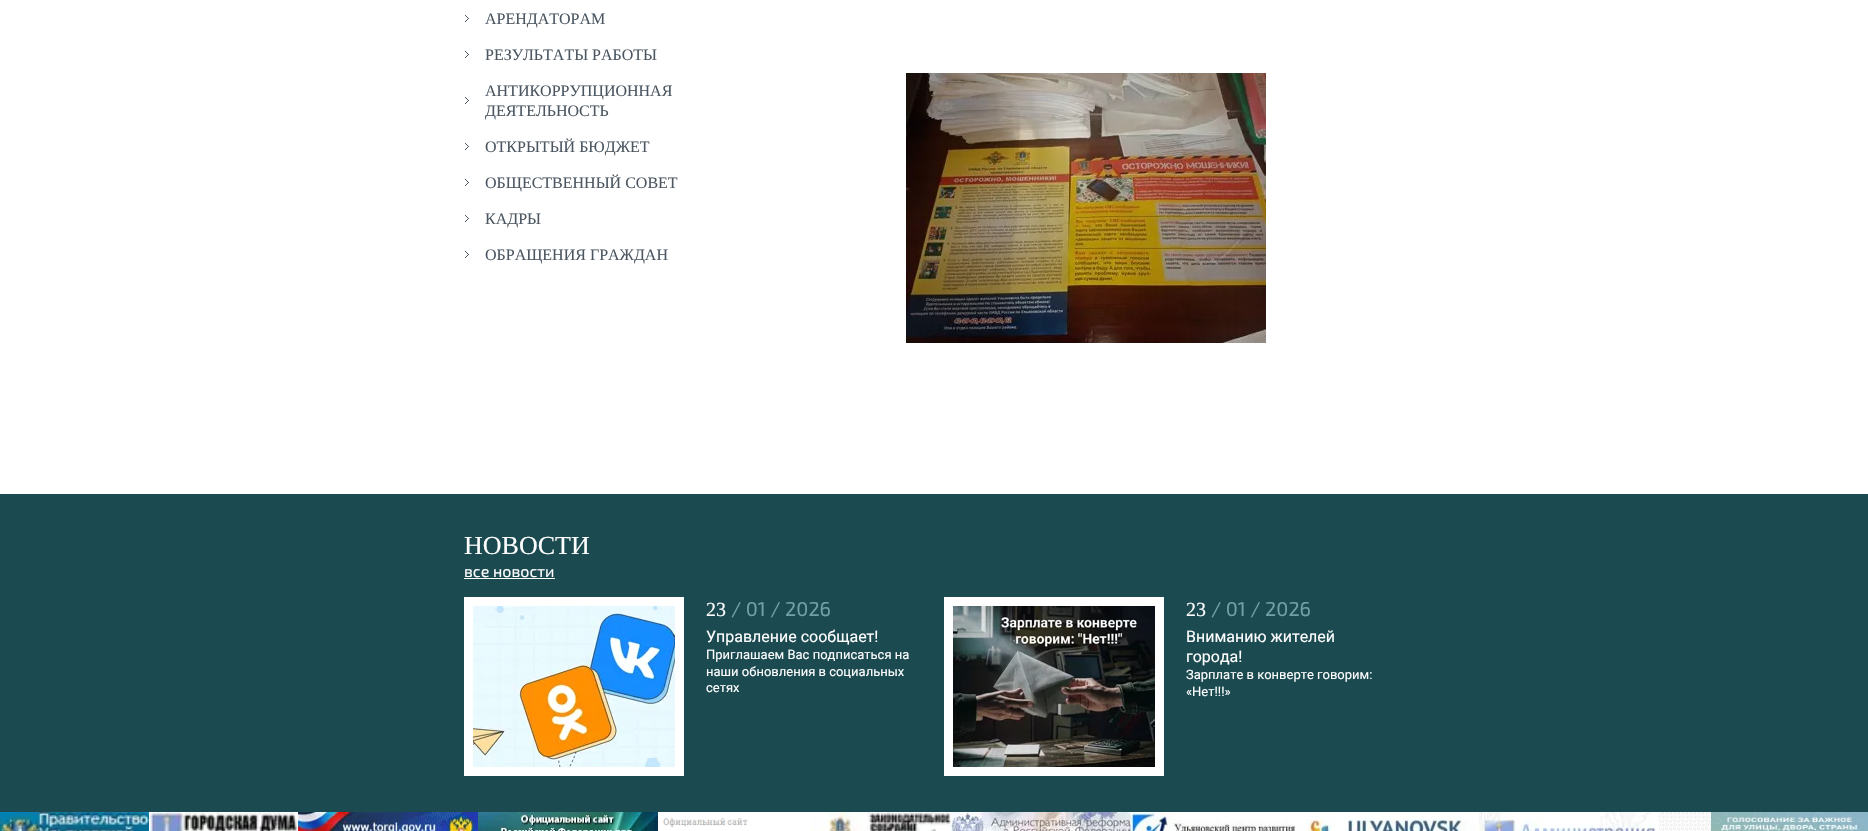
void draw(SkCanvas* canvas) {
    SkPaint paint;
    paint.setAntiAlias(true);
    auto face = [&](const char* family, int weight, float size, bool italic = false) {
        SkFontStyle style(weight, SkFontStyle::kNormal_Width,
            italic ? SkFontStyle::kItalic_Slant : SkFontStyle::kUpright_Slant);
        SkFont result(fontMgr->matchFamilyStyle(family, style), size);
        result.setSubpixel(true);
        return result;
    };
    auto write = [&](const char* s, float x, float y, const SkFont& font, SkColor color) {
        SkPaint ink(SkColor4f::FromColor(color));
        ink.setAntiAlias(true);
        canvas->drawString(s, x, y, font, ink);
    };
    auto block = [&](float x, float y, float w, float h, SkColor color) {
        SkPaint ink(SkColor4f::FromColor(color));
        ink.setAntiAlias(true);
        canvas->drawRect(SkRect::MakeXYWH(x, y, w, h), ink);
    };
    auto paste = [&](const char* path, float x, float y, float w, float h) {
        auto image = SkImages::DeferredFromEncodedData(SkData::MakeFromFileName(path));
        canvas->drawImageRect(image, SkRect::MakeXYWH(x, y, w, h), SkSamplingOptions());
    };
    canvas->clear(SK_ColorWHITE);
    paste("pic1.png", 1659, 812, 52, 19);
    paste("pic2.png", 465, 15, 4, 7);
    auto kFont1 = face("Liberation Serif", 400, 16);
    write("АРЕНДАТОРАМ", 485, 24, kFont1, SkColorSetRGB(75, 86, 97));
    paste("pic2.png", 465, 51, 4, 7);
    write("РЕЗУЛЬТАТЫ РАБОТЫ", 485, 60, kFont1, SkColorSetRGB(75, 86, 97));
    paste("pic2.png", 465, 97, 4, 7);
    write("АНТИКОРРУПЦИОННАЯ", 485, 96, kFont1, SkColorSetRGB(75, 86, 97));
    write("ДЕЯТЕЛЬНОСТЬ", 485, 116, kFont1, SkColorSetRGB(75, 86, 97));
    paste("pic2.png", 465, 143, 4, 7);
    write("ОТКРЫТЫЙ БЮДЖЕТ", 485, 152, kFont1, SkColorSetRGB(75, 86, 97));
    paste("pic2.png", 465, 179, 4, 7);
    write("ОБЩЕСТВЕННЫЙ СОВЕТ", 485, 188, kFont1, SkColorSetRGB(75, 86, 97));
    paste("pic2.png", 465, 215, 4, 7);
    write("КАДРЫ", 485, 224, kFont1, SkColorSetRGB(75, 86, 97));
    paste("pic2.png", 465, 251, 4, 7);
    write("ОБРАЩЕНИЯ ГРАЖДАН", 485, 260, kFont1, SkColorSetRGB(75, 86, 97));
    paste("pic3.png", 906, 73, 360, 270);
    block(0, 494, 1868, 318, SkColorSetRGB(28, 74, 81));
    auto kFont2 = face("Liberation Serif", 400, 26);
    write("НОВОСТИ", 464, 554, kFont2, SK_ColorWHITE);
    auto kFont3 = face("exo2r", 400, 16);
    write("все новости", 464, 577, kFont3, SK_ColorWHITE);
    block(464, 578, 91, 1, SK_ColorWHITE);
    block(464, 597, 220, 179, SK_ColorWHITE);
    paste("pic4.png", 473, 606, 202, 161);
    auto kFont4 = face("Liberation Serif", 400, 20);
    write("23", 706, 616, kFont4, SK_ColorWHITE);
    auto kFont5 = face("exo2r", 400, 20);
    write("/ 01 / 2026", 731, 616, kFont5, SkColorSetRGB(115, 160, 167));
    auto kFont6 = face("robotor", 400, 16);
    write("Управление сообщает!", 706, 642, kFont6, SK_ColorWHITE);
    auto kFont7 = face("robotor", 400, 13);
    write("Приглашаем Вас подписаться на", 706, 659, kFont7, SK_ColorWHITE);
    write("наши обновления в социальных", 706, 676, kFont7, SK_ColorWHITE);
    write("сетях", 706, 692, kFont7, SK_ColorWHITE);
    block(944, 597, 220, 179, SK_ColorWHITE);
    paste("pic5.png", 953, 606, 202, 161);
    write("23", 1186, 616, kFont4, SK_ColorWHITE);
    write("/ 01 / 2026", 1211, 616, kFont5, SkColorSetRGB(115, 160, 167));
    write("Вниманию жителей", 1186, 642, kFont6, SK_ColorWHITE);
    write("города!", 1186, 662, kFont6, SK_ColorWHITE);
    write("Зарплате в конверте говорим:", 1186, 679, kFont7, SK_ColorWHITE);
    write("«Нет!!!»", 1186, 696, kFont7, SK_ColorWHITE);
    paste("pic6.png", 0, 812, 149, 19);
    paste("pic7.png", 149, 812, 149, 19);
    paste("pic8.png", 298, 812, 180, 19);
    paste("pic9.png", 478, 812, 180, 19);
    paste("pic10.png", 658, 812, 153, 19);
    paste("pic11.png", 811, 812, 140, 19);
    paste("pic12.png", 951, 812, 180, 19);
    paste("pic13.png", 1131, 812, 168, 19);
    paste("pic14.png", 1299, 812, 180, 19);
    paste("pic15.png", 1479, 812, 180, 19);
    paste("pic16.png", 1711, 812, 157, 19);
}
